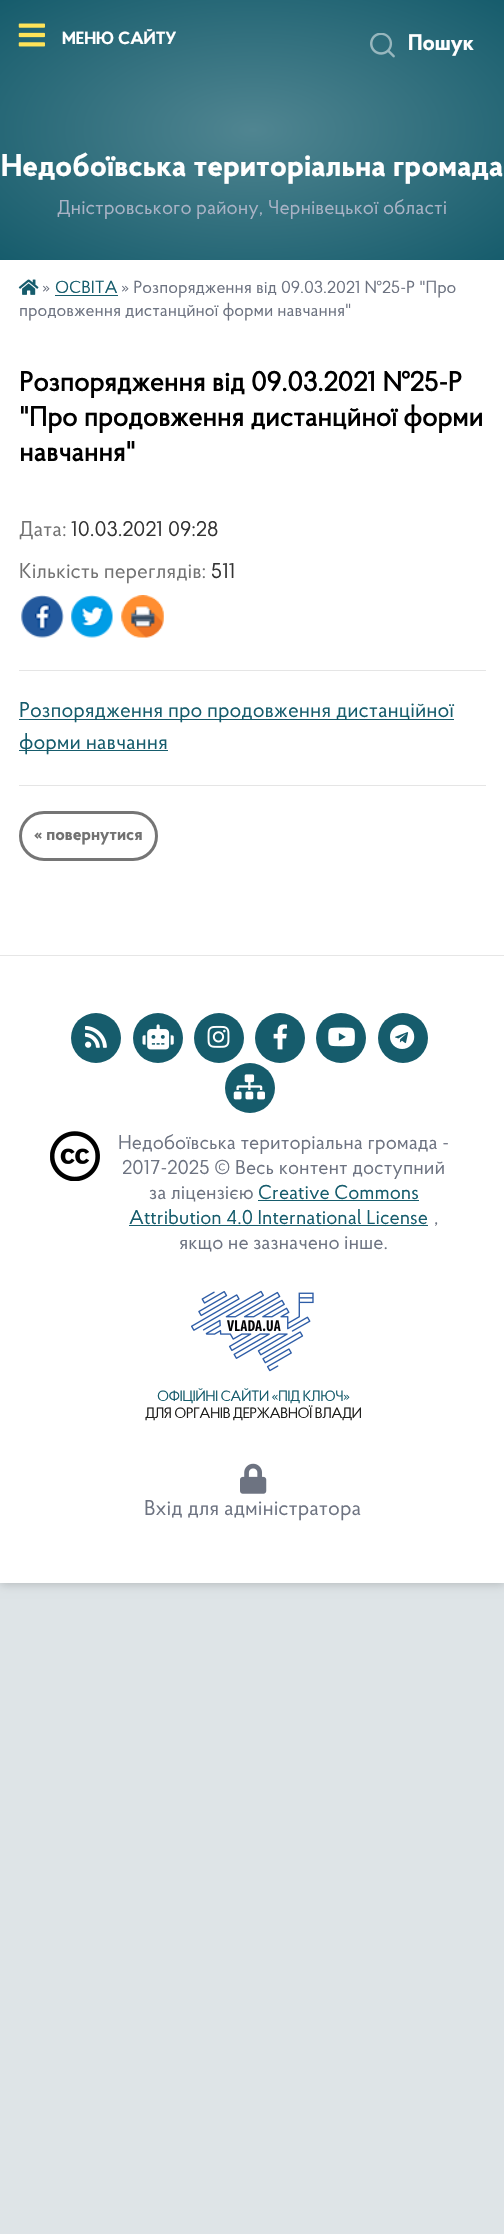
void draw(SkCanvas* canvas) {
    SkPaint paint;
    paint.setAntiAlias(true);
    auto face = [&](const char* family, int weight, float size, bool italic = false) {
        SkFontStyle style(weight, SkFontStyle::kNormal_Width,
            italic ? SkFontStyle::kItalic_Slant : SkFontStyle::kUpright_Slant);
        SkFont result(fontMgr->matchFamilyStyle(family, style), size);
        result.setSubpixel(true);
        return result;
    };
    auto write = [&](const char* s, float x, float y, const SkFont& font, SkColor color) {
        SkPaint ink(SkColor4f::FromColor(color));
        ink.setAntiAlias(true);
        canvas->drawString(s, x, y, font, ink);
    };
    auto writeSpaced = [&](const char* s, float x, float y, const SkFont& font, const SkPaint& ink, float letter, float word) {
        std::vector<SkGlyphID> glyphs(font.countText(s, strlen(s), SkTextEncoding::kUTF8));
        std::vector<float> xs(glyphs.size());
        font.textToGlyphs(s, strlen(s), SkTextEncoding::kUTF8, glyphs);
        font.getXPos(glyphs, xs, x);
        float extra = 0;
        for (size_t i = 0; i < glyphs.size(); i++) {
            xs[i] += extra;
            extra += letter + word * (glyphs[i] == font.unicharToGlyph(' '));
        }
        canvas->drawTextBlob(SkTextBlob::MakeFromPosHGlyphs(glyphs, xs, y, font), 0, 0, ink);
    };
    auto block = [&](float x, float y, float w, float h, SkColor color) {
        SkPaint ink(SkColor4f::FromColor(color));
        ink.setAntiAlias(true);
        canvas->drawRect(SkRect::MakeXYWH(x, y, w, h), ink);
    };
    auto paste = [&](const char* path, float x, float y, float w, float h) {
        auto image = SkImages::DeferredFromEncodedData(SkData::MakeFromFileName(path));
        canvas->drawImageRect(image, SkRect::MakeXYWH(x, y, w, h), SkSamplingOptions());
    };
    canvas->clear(SkColorSetRGB(222, 228, 231));
    paint.setColor(SkColorSetARGB(51, 0, 0, 0));
    paint.setMaskFilter(SkMaskFilter::MakeBlur(kNormal_SkBlurStyle, 5));
    canvas->drawRect(SkRect::MakeXYWH(0, 1, 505, 1583), paint);
    paint.setMaskFilter(nullptr);
    block(0, 260, 504, 1323, SK_ColorWHITE);
    {
        const SkColor colors[] = {SkColorSetRGB(80, 133, 145), SkColorSetRGB(22, 92, 108)};
        const float stops[] = {0, 1};
        SkMatrix m = SkMatrix::Translate(253, 130).preScale(357, 184);
        paint.setShader(SkGradientShader::MakeRadial({0, 0}, 1, colors, stops, 2, SkTileMode::kClamp, 0, &m));
        paint.setAlpha(255);
    }
    canvas->drawRect(SkRect::MakeXYWH(0, 0, 504, 260), paint);
    paste("pic1.png", 18, 23, 27, 24);
    auto kFont1 = face("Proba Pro", 700, 17.5f);
    write("МЕНЮ САЙТУ", 62, 44, kFont1, SK_ColorWHITE);
    paste("pic2.png", 370, 33, 25, 25);
    auto kFont2 = face("Proba Pro", 700, 22.5f);
    write("Пошук", 408, 50, kFont2, SK_ColorWHITE);
    auto kFont3 = face("Proba Pro", 700, 31.25f);
    write("Недобоївська територіальна громада", 1, 176, kFont3, SK_ColorWHITE);
    auto kFont4 = face("Proba Pro", 400, 20);
    write("Дністровського району, Чернівецької області", 57, 214, kFont4, SkColorSetRGB(170, 179, 198));
    paste("pic3.png", 18, 279, 21, 16);
    auto kFont5 = face("Proba Pro", 400, 17.5f);
    write("»", 42, 293, kFont5, SkColorSetRGB(109, 115, 129));
    write("ОСВІТА", 55, 293, kFont5, SkColorSetRGB(22, 92, 108));
    block(55, 295, 63, 1, SkColorSetRGB(22, 92, 108));
    write("» Розпорядження від 09.03.2021 №25-Р \"Про", 121, 293, kFont5, SkColorSetRGB(109, 115, 129));
    write("продовження дистанцйної форми навчання\"", 19, 316, kFont5, SkColorSetRGB(109, 115, 129));
    auto kFont6 = face("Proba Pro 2", 700, 27.5f);
    write("Розпорядження від 09.03.2021 №25-Р", 19, 391, kFont6, SK_ColorBLACK);
    write("\"Про продовження дистанцйної форми", 19, 426, kFont6, SK_ColorBLACK);
    write("навчання\"", 19, 461, kFont6, SK_ColorBLACK);
    auto kFont7 = face("Proba Pro", 400, 21.25f);
    write("Дата:", 19, 536, kFont7, SkColorSetRGB(114, 114, 114));
    write("10.03.2021 09:28", 71, 536, kFont7, SkColorSetRGB(51, 51, 51));
    write("Кількість переглядів:", 19, 578, kFont7, SkColorSetRGB(114, 114, 114));
    write("511", 211, 578, kFont7, SkColorSetRGB(51, 51, 51));
    paste("pic4.png", 21, 595, 43, 43);
    paste("pic5.png", 71, 595, 42, 43);
    paste("pic6.png", 121, 595, 43, 43);
    block(19, 670, 467, 1, SkColorSetRGB(229, 229, 229));
    block(19, 719, 435, 1, SkColorSetRGB(22, 92, 108));
    write("Розпорядження про продовження дистанційної", 19, 717, kFont7, SkColorSetRGB(22, 92, 108));
    block(19, 750, 149, 1, SkColorSetRGB(22, 92, 108));
    write("форми навчання", 19, 749, kFont7, SkColorSetRGB(22, 92, 108));
    block(19, 785, 467, 1, SkColorSetRGB(229, 229, 229));
    paint.setStyle(SkPaint::kStroke_Style);
    paint.setStrokeWidth(3);
    paint.setShader(nullptr);
    paint.setColor(SkColorSetRGB(117, 117, 117));
    canvas->drawRoundRect(SkRect::MakeXYWH(20.5f, 812.5f, 136, 47), 23.5f, 23.5f, paint);
    write("« повернутися", 34, 840, kFont1, SkColorSetRGB(114, 114, 114));
    block(0, 955, 504, 1, SkColorSetRGB(230, 230, 230));
    paint.setStyle(SkPaint::kFill_Style);
    paint.setColor(SkColorSetRGB(22, 92, 108));
    canvas->drawCircle(96, 1038, 25, paint);
    paste("pic7.png", 85, 1026, 22, 22);
    canvas->drawCircle(158, 1038, 25, paint);
    paste("pic8.png", 142, 1024, 32, 26);
    canvas->drawCircle(219, 1038, 25, paint);
    paste("pic9.png", 207, 1025, 23, 23);
    canvas->drawCircle(280, 1038, 25, paint);
    paste("pic10.png", 273, 1024, 14, 26);
    canvas->drawCircle(341, 1038, 25, paint);
    paste("pic11.png", 328, 1027, 27, 20);
    canvas->drawCircle(403, 1038, 25, paint);
    paste("pic12.png", 390, 1024, 25, 25);
    canvas->drawCircle(250, 1088, 25, paint);
    paste("pic13.png", 233, 1074, 32, 26);
    paste("pic14.png", 50, 1131, 50, 50);
    write("Недобоївська територіальна громада -", 118, 1149, kFont4, SkColorSetRGB(109, 115, 129));
    write("2017-2025 © Весь контент доступний", 122, 1174, kFont4, SkColorSetRGB(109, 115, 129));
    write("за ліцензією", 149, 1199, kFont4, SkColorSetRGB(109, 115, 129));
    write("Creative Commons", 258, 1199, kFont4, SkColorSetRGB(22, 92, 108));
    block(258, 1200, 161, 1, SkColorSetRGB(22, 92, 108));
    write("Attribution 4.0 International License", 129, 1224, kFont4, SkColorSetRGB(22, 92, 108));
    block(129, 1225, 299, 1, SkColorSetRGB(22, 92, 108));
    write(",", 434, 1224, kFont4, SkColorSetRGB(109, 115, 129));
    write("якщо не зазначено інше.", 179, 1249, kFont4, SkColorSetRGB(109, 115, 129));
    paste("pic15.png", 191, 1290, 123, 82);
    auto kFont8 = face("Proba Pro", 400, 15);
    writeSpaced("ОФІЦІЙНІ САЙТИ «ПІД КЛЮЧ»", 157, 1401, kFont8, paint, -0.6f, 0);
    paint.setColor(SkColorSetRGB(29, 29, 27));
    writeSpaced("ДЛЯ ОРГАНІВ ДЕРЖАВНОЇ ВЛАДИ", 145, 1418, kFont8, paint, -0.6f, 0);
    paste("pic16.png", 240, 1463, 27, 31);
    write("Вхід для адміністратора", 144, 1515, kFont7, SkColorSetRGB(109, 115, 129));
}
